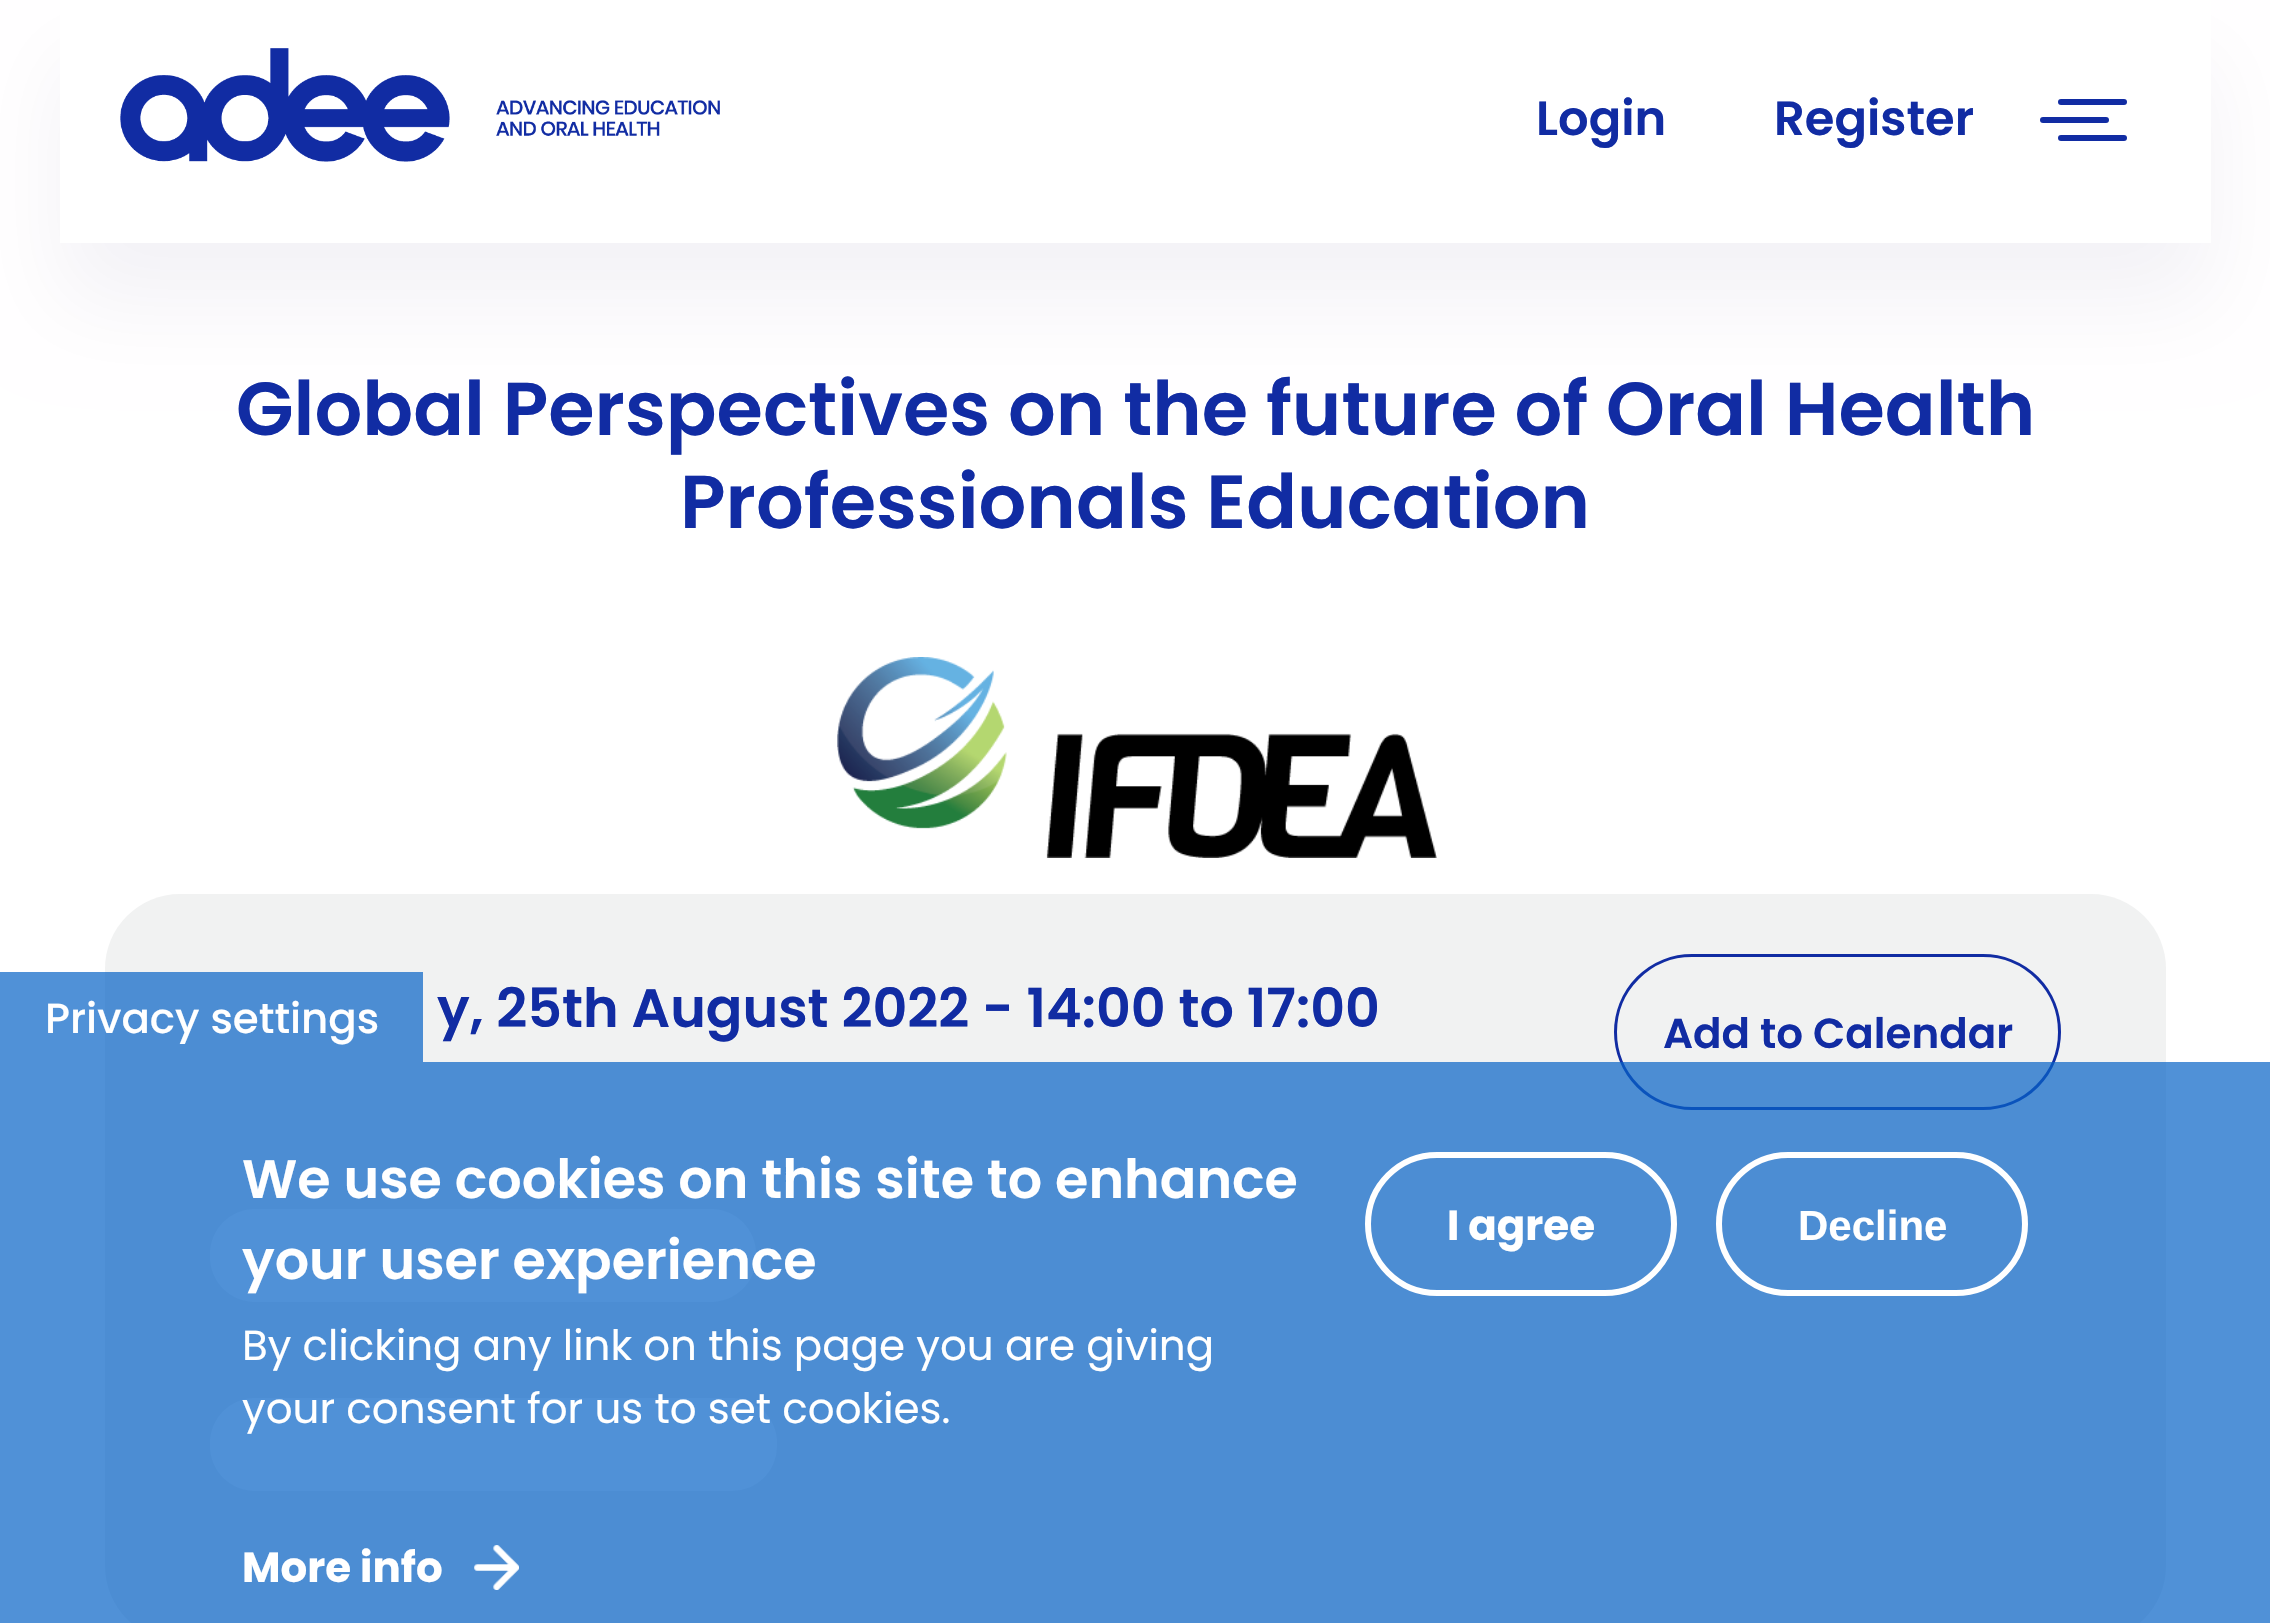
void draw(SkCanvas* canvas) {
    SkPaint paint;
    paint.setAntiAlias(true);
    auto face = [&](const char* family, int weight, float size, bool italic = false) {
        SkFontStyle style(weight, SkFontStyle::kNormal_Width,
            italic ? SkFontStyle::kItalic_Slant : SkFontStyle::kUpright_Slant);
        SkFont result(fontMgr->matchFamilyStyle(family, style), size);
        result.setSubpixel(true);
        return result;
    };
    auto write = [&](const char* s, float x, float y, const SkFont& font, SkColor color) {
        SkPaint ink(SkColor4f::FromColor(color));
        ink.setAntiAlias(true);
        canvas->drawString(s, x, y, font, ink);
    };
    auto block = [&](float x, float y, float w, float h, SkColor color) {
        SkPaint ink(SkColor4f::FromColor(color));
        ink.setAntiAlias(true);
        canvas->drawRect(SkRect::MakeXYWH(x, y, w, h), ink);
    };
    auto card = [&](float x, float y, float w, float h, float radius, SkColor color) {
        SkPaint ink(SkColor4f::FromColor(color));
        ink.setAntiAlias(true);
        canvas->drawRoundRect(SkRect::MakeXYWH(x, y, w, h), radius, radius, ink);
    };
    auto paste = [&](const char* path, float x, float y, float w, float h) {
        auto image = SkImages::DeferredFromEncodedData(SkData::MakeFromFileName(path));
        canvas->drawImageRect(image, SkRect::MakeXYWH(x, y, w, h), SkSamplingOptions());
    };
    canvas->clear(SK_ColorWHITE);
    canvas->save();
    canvas->clipPath(SkPathBuilder(SkPathFillType::kEvenOdd).moveTo(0, 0).lineTo(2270, 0).lineTo(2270, 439).lineTo(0, 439).close().moveTo(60, 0).lineTo(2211, 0).lineTo(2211, 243).lineTo(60, 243).close().detach(), true);
    paint.setColor(SkColorSetARGB(13, 28, 9, 80));
    paint.setMaskFilter(SkMaskFilter::MakeBlur(kNormal_SkBlurStyle, 45));
    canvas->drawRect(SkRect::MakeXYWH(60, 60, 2151, 243), paint);
    paint.setMaskFilter(nullptr);
    canvas->restore();
    paste("pic1.png", 120, 48, 600, 114);
    auto kFont1 = face("Poppins", 600, 48);
    write("Login", 1536, 135, kFont1, SkColorSetRGB(17, 44, 163));
    write("Register", 1774, 135, kFont1, SkColorSetRGB(17, 44, 163));
    card(2058, 99, 69, 6, 3, SkColorSetRGB(17, 44, 163));
    card(2040, 117, 69, 6, 3, SkColorSetRGB(17, 44, 163));
    card(2058, 135, 69, 6, 3, SkColorSetRGB(17, 44, 163));
    auto kFont2 = face("Poppins", 600, 75);
    write("Global Perspectives on the future of Oral Health", 236, 435, kFont2, SkColorSetRGB(17, 44, 163));
    write("Professionals Education", 680, 528, kFont2, SkColorSetRGB(17, 44, 163));
    paste("pic2.png", 837, 657, 600, 201);
    card(105, 894, 2061, 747, 75, SkColorSetRGB(241, 242, 242));
    auto kFont3 = face("Poppins", 600, 54);
    write("y, 25th August 2022 - 14:00 to 17:00", 437, 1027, kFont3, SkColorSetRGB(17, 44, 163));
    paint.setStyle(SkPaint::kStroke_Style);
    paint.setStrokeWidth(3);
    paint.setColor(SkColorSetRGB(17, 44, 163));
    canvas->drawRoundRect(SkRect::MakeXYWH(1615.5f, 955.5f, 444, 153), 76.5f, 76.5f, paint);
    auto kFont4 = face("Poppins", 600, 42);
    write("Add to Calendar", 1663, 1048, kFont4, SkColorSetRGB(17, 44, 163));
    card(210, 1209, 546, 93, 45, SK_ColorWHITE);
    card(210, 1398, 567, 93, 45, SK_ColorWHITE);
    block(0, 1062, 2270, 561, SkColorSetARGB(179, 6, 98, 198));
    block(0, 972, 423, 90, SkColorSetARGB(179, 6, 98, 198));
    auto kFont5 = face("Poppins", 500, 42);
    write("Privacy settings", 45, 1033, kFont5, SK_ColorWHITE);
    write("We use cookies on this site to enhance", 242, 1198, kFont3, SK_ColorWHITE);
    write("your user experience", 242, 1279, kFont3, SK_ColorWHITE);
    auto kFont6 = face("Poppins", 400, 42);
    write("By clicking any link on this page you are giving", 242, 1360, kFont6, SK_ColorWHITE);
    write("your consent for us to set cookies.", 242, 1423, kFont6, SK_ColorWHITE);
    paste("pic3.png", 474, 1545, 45, 45);
    auto kFont7 = face("Poppins", 700, 42);
    write("More info", 242, 1582, kFont7, SK_ColorWHITE);
    paint.setStrokeWidth(6);
    paint.setColor(SK_ColorWHITE);
    canvas->drawRoundRect(SkRect::MakeXYWH(1368, 1155, 306, 138), 69, 69, paint);
    write("I agree", 1447, 1240, kFont7, SK_ColorWHITE);
    canvas->drawRoundRect(SkRect::MakeXYWH(1719, 1155, 306, 138), 69, 69, paint);
    auto kFont8 = face("Liberation Sans", 700, 42);
    write("Decline", 1798, 1240, kFont8, SK_ColorWHITE);
}
